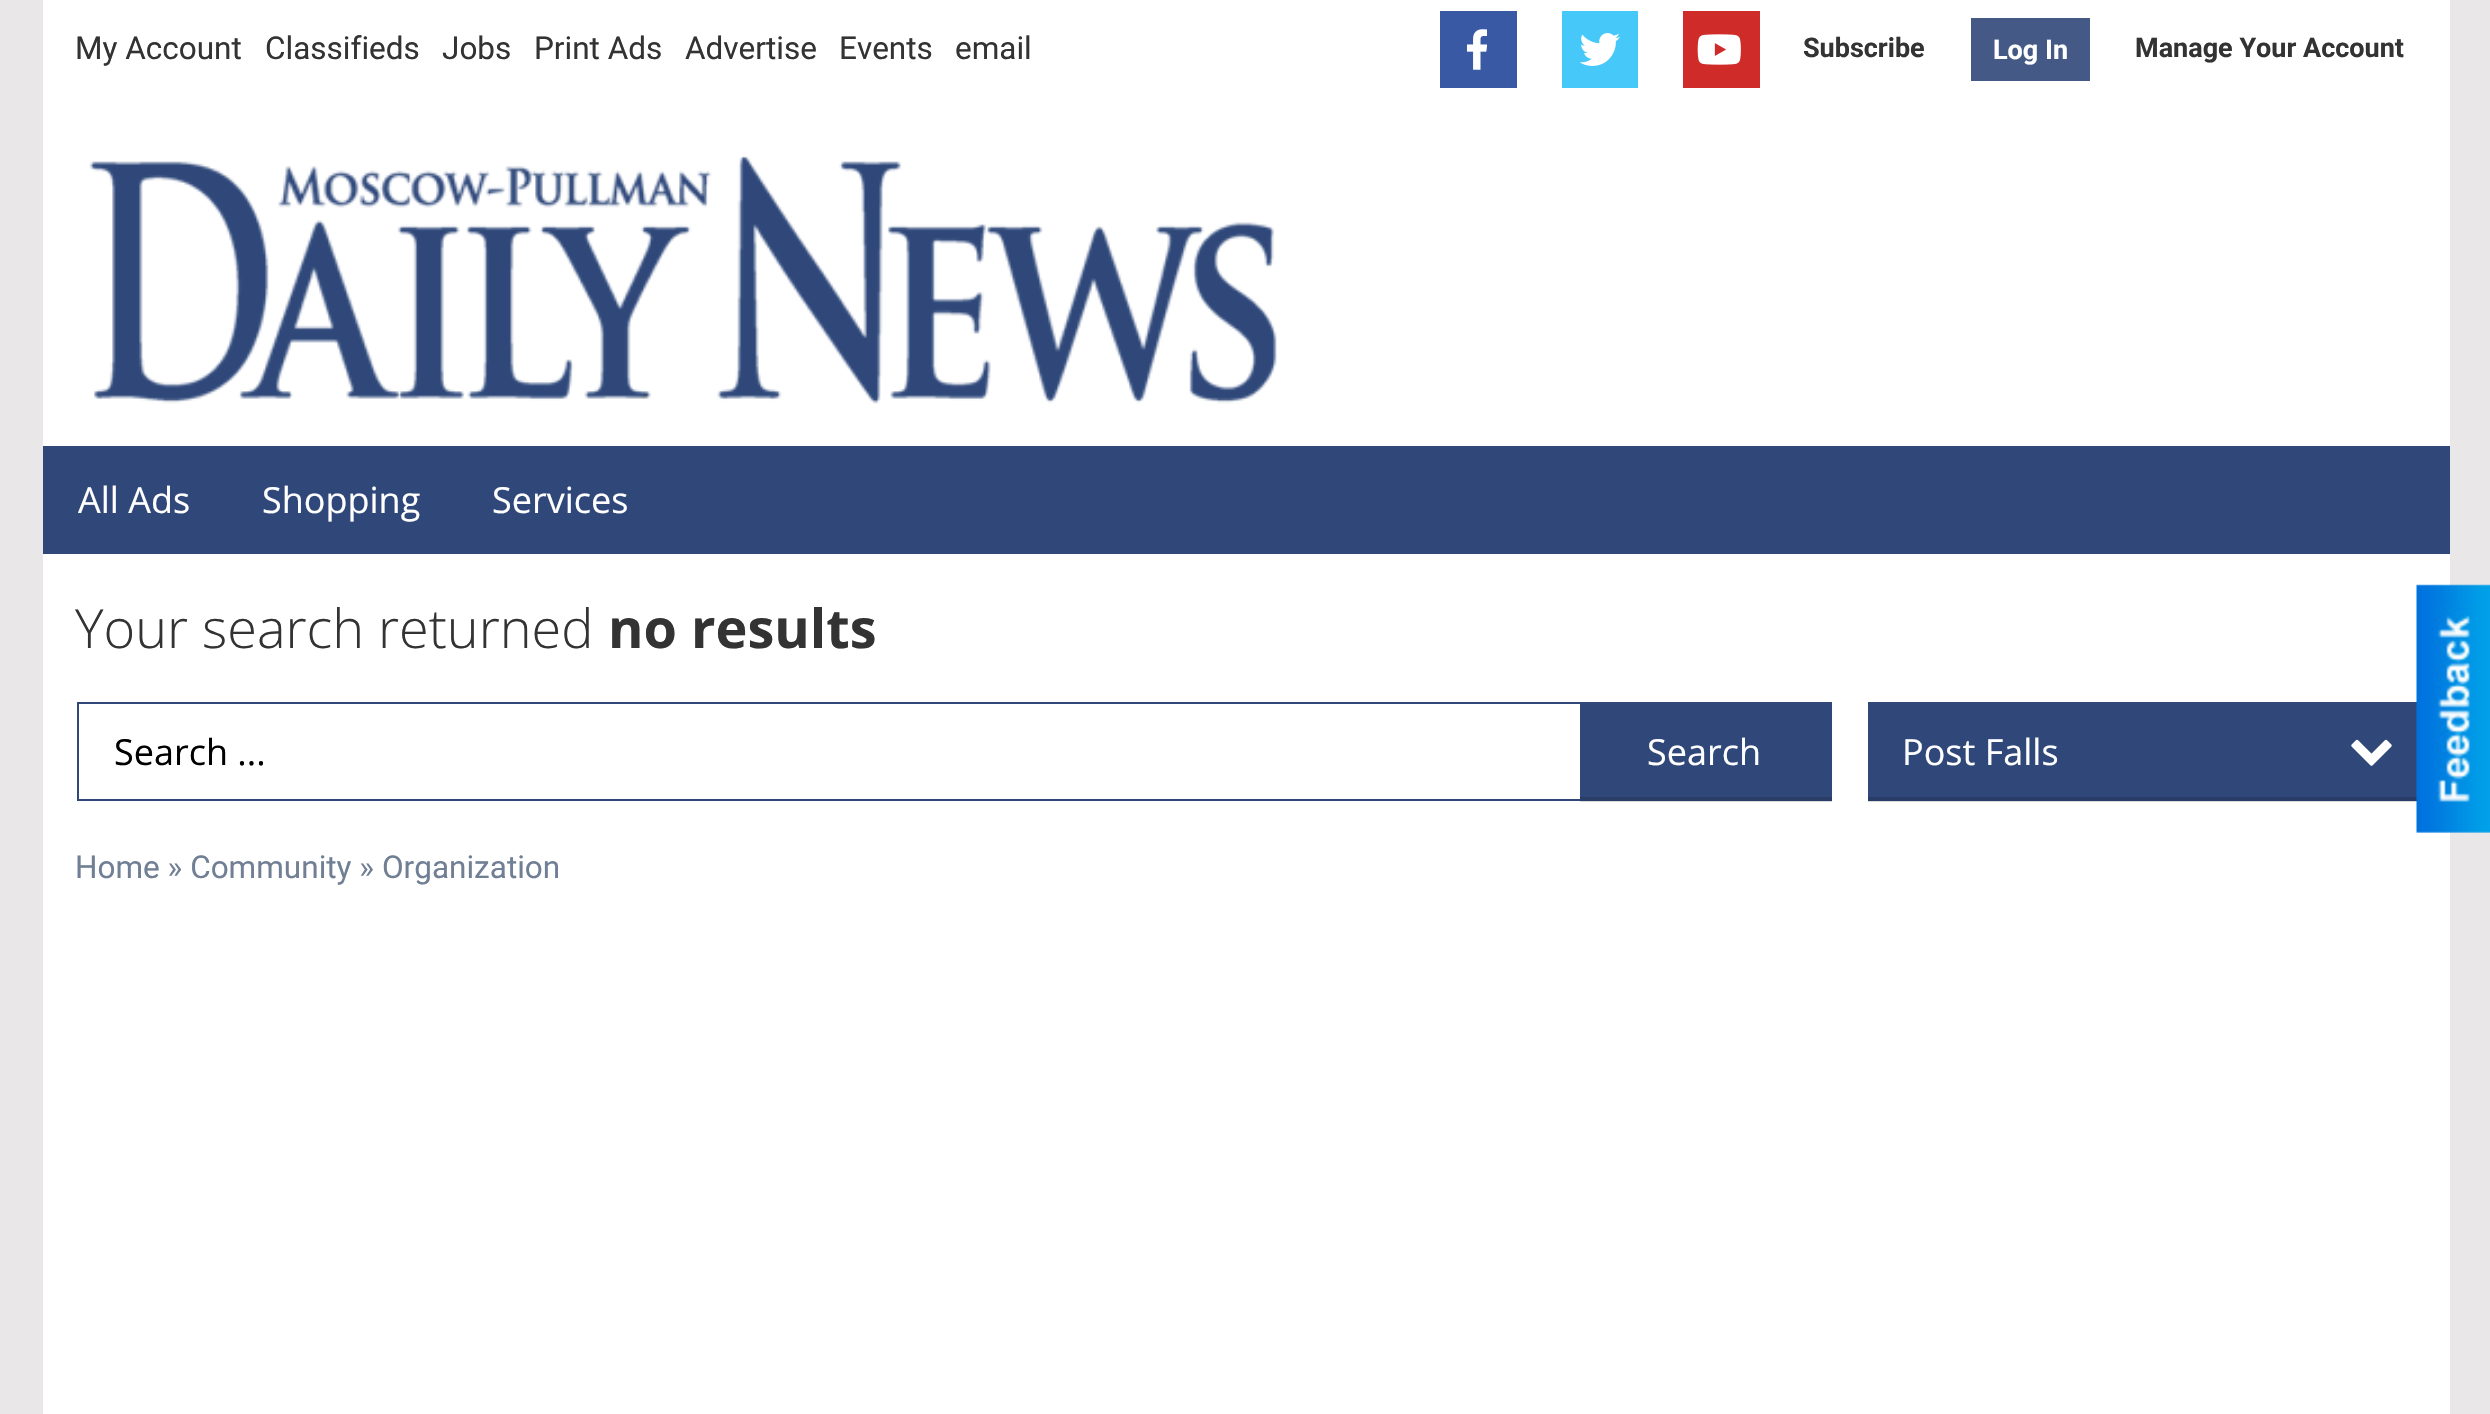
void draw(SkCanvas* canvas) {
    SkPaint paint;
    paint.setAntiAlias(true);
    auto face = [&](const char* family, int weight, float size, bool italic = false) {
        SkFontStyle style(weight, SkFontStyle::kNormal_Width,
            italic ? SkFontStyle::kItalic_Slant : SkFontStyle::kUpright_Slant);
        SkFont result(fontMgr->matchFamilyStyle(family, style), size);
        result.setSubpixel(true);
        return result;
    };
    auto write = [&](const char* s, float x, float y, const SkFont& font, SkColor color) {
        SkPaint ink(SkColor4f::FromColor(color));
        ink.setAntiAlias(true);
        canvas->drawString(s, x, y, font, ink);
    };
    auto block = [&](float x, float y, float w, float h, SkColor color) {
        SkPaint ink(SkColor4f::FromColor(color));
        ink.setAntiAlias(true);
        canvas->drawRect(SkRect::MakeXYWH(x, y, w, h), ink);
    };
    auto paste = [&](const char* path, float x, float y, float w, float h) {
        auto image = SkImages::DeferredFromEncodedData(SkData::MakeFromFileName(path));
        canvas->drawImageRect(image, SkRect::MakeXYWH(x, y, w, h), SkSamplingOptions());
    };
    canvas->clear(SkColorSetRGB(233, 231, 232));
    block(43, 0, 2407, 1414, SK_ColorWHITE);
    block(1868, 801, 549, 1, SkColorSetRGB(217, 217, 217));
    auto kFont1 = face("Roboto", 400, 31.5f);
    write("My Account", 75, 59, kFont1, SkColorSetRGB(51, 51, 51));
    write("Classifieds", 265, 59, kFont1, SkColorSetRGB(51, 51, 51));
    write("Jobs", 442, 59, kFont1, SkColorSetRGB(51, 51, 51));
    write("Print Ads", 534, 59, kFont1, SkColorSetRGB(51, 51, 51));
    write("Advertise", 685, 59, kFont1, SkColorSetRGB(51, 51, 51));
    write("Events", 839, 59, kFont1, SkColorSetRGB(51, 51, 51));
    write("email", 955, 59, kFont1, SkColorSetRGB(51, 51, 51));
    block(1440, 11, 77, 77, SkColorSetRGB(58, 89, 165));
    paste("pic1.png", 1467, 29, 20, 41);
    block(1562, 11, 76, 77, SkColorSetRGB(70, 200, 249));
    paste("pic2.png", 1580, 33, 40, 33);
    block(1683, 11, 77, 77, SkColorSetRGB(206, 43, 41));
    paste("pic3.png", 1697, 34, 44, 31);
    auto kFont2 = face("Roboto", 700, 27);
    write("Subscribe", 1803, 57, kFont2, SkColorSetRGB(51, 51, 51));
    block(1971, 18, 119, 63, SkColorSetRGB(69, 89, 134));
    write("Log In", 1993, 59, kFont2, SK_ColorWHITE);
    write("Manage Your Account", 2135, 57, kFont2, SkColorSetRGB(51, 51, 51));
    paste("pic4.png", 89, 155, 1188, 249);
    block(43, 446, 2407, 108, SkColorSetRGB(48, 71, 121));
    auto kFont3 = face("Open Sans", 400, 36);
    write("All Ads", 78, 513, kFont3, SK_ColorWHITE);
    write("Shopping", 262, 513, kFont3, SK_ColorWHITE);
    write("Services", 492, 513, kFont3, SK_ColorWHITE);
    auto kFont4 = face("Open Sans", 300, 54);
    write("Your search returned", 75, 648, kFont4, SkColorSetRGB(51, 51, 51));
    auto kFont5 = face("Open Sans", 700, 54);
    write("no results", 608, 648, kFont5, SkColorSetRGB(51, 51, 51));
    paint.setStyle(SkPaint::kStroke_Style);
    paint.setStrokeWidth(2);
    paint.setColor(SkColorSetRGB(48, 71, 121));
    canvas->drawRect(SkRect::MakeXYWH(78, 703, 1753, 97), paint);
    write("Search ...", 114, 765, kFont3, SK_ColorBLACK);
    block(1580, 704, 250, 95, SkColorSetRGB(48, 71, 121));
    block(1580, 797, 252, 5, SkColorSetARGB(38, 0, 0, 0));
    write("Search", 1647, 765, kFont3, SK_ColorWHITE);
    block(1868, 702, 549, 95, SkColorSetRGB(48, 71, 121));
    block(1868, 797, 549, 4, SkColorSetRGB(41, 60, 103));
    write("Post Falls", 1902, 765, kFont3, SK_ColorWHITE);
    paste("pic5.png", 2351, 739, 41, 27);
    write("Home » Community » Organization", 75, 878, kFont1, SkColorSetRGB(112, 127, 148));
    paste("pic6.png", 2416, 584, 74, 249);
}
